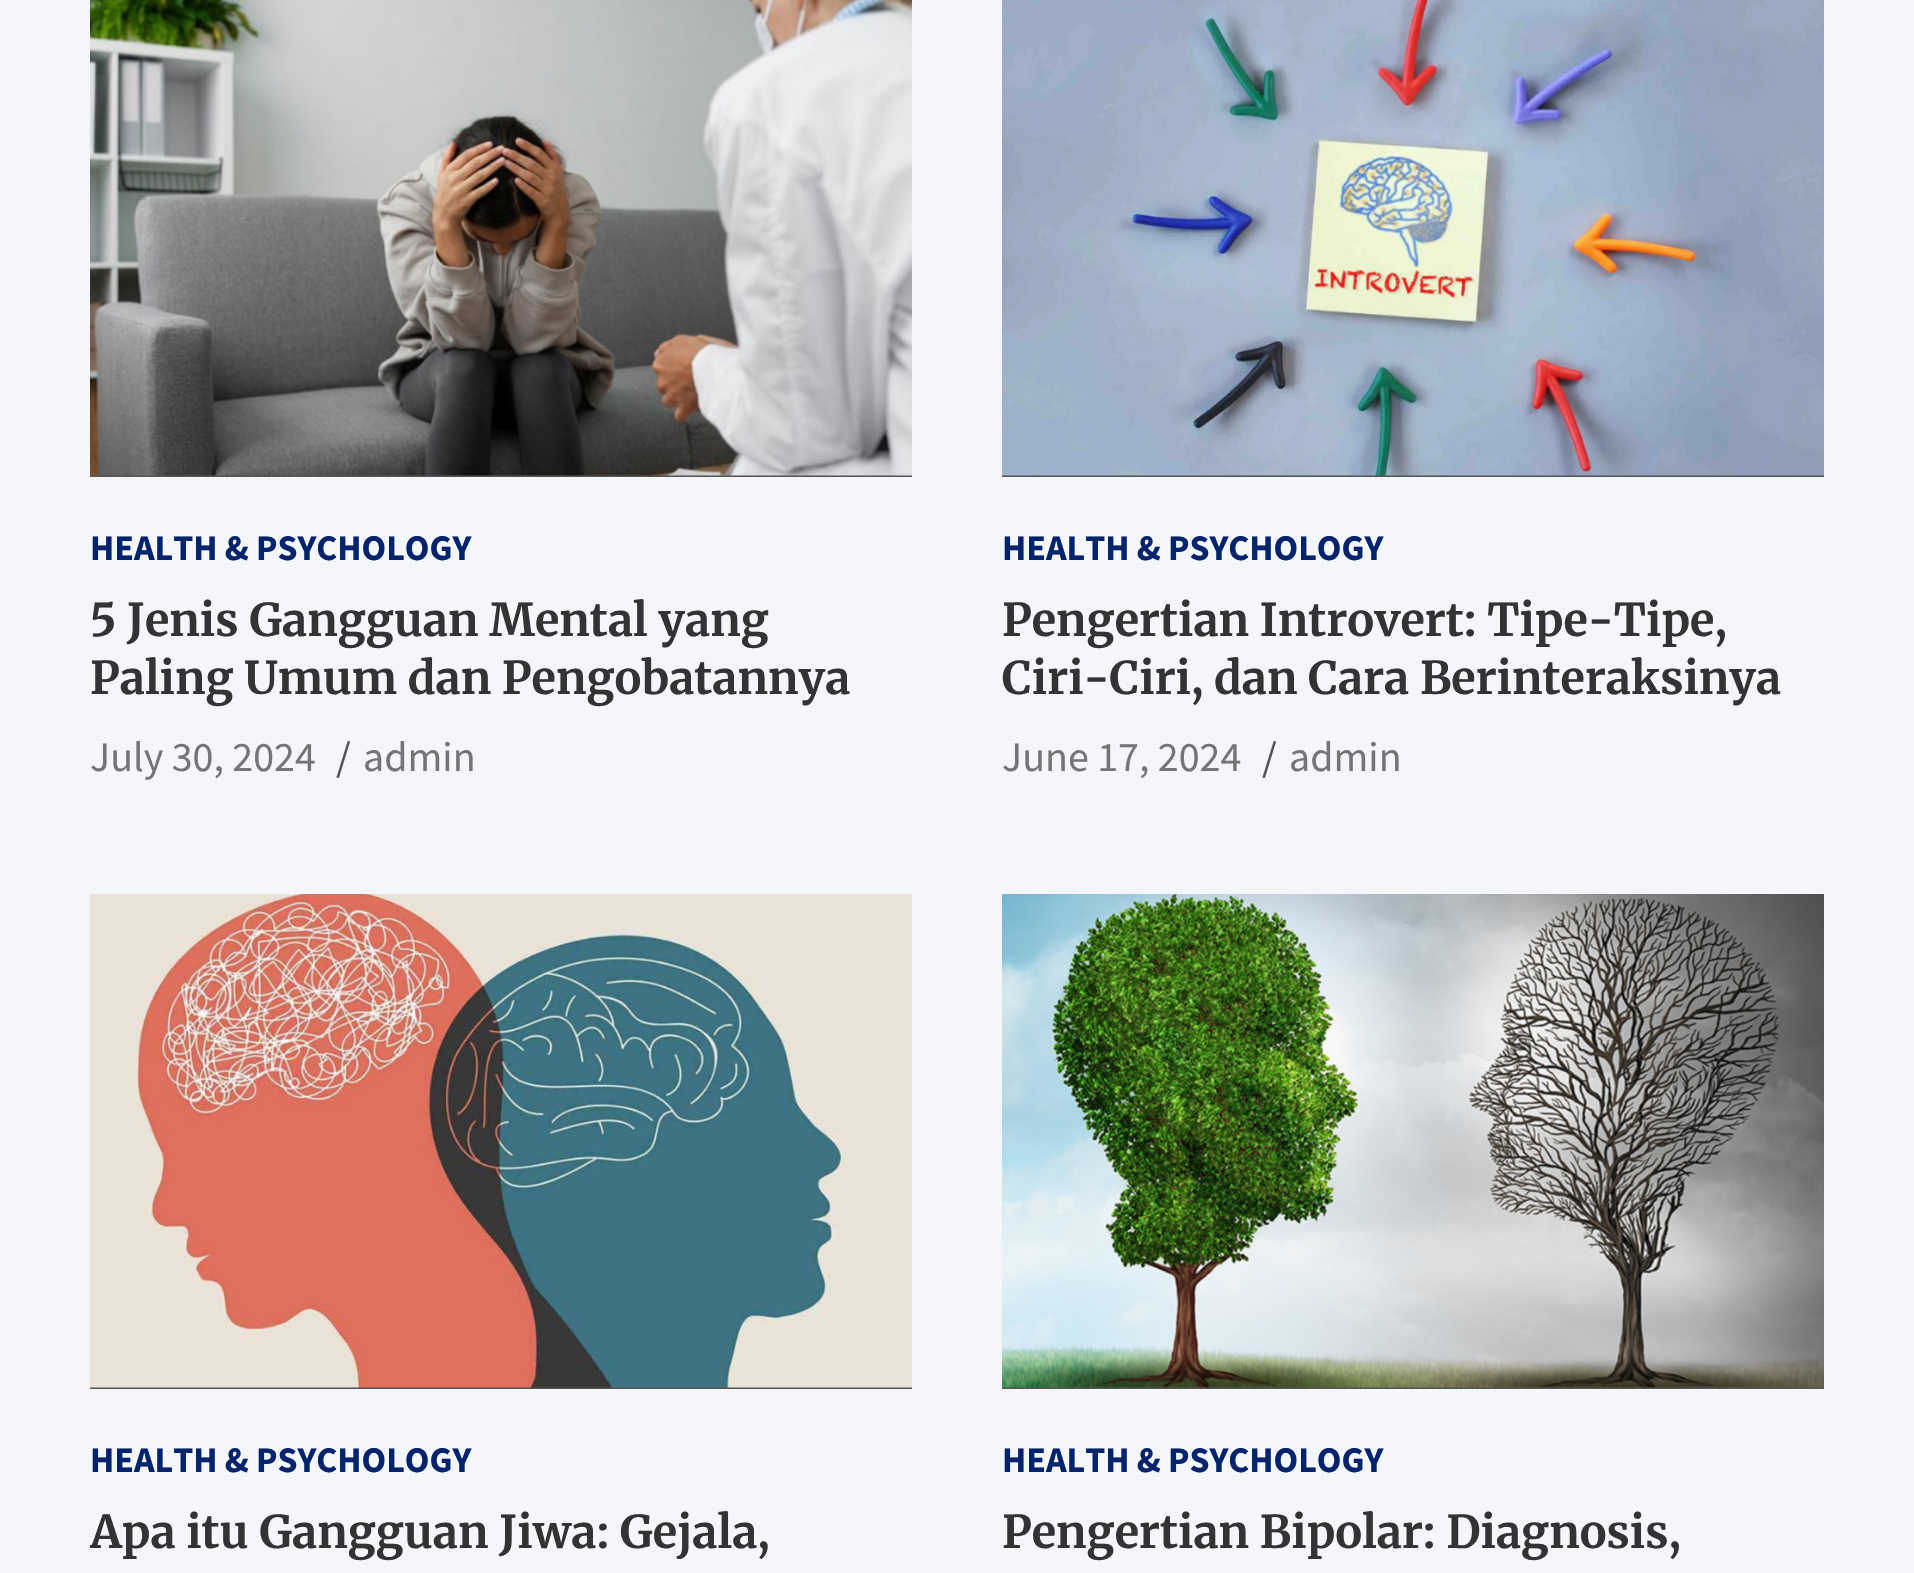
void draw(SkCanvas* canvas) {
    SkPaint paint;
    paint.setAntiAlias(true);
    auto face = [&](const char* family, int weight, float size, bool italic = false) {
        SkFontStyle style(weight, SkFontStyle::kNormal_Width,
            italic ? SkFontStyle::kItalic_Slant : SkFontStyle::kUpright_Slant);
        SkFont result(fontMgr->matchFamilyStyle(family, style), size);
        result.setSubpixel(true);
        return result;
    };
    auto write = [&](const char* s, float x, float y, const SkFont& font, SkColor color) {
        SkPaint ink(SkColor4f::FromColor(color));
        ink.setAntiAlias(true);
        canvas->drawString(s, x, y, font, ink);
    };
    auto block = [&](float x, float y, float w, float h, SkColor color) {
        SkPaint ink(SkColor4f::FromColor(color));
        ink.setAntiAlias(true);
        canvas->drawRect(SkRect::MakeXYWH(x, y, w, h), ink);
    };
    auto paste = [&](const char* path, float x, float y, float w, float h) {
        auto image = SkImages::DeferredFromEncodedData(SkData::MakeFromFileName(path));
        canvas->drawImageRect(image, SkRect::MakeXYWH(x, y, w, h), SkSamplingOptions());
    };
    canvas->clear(SkColorSetRGB(244, 246, 249));
    block(90, 475, 822, 2, SkColorSetRGB(85, 85, 85));
    paste("pic1.png", 90, 0, 822, 476);
    auto kFont1 = face("Source Sans Pro", 700, 36);
    write("HEALTH & PSYCHOLOGY", 90, 560, kFont1, SkColorSetRGB(0, 35, 110));
    auto kFont2 = face("Merriweather", 700, 45);
    write("5 Jenis Gangguan Mental yang", 90, 636, kFont2, SkColorSetRGB(51, 51, 51));
    write("Paling Umum dan Pengobatannya", 90, 694, kFont2, SkColorSetRGB(51, 51, 51));
    auto kFont3 = face("Source Sans Pro", 400, 42);
    write("July 30, 2024", 90, 771, kFont3, SkColorSetRGB(117, 117, 118));
    write("/", 336, 771, kFont3, SkColorSetRGB(85, 85, 85));
    write("admin", 363, 771, kFont3, SkColorSetRGB(117, 117, 118));
    block(1002, 475, 822, 2, SkColorSetRGB(85, 85, 85));
    paste("pic2.png", 1002, 0, 822, 476);
    write("HEALTH & PSYCHOLOGY", 1002, 560, kFont1, SkColorSetRGB(0, 35, 110));
    write("Pengertian Introvert: Tipe-Tipe,", 1002, 636, kFont2, SkColorSetRGB(51, 51, 51));
    write("Ciri-Ciri, dan Cara Berinteraksinya", 1002, 694, kFont2, SkColorSetRGB(51, 51, 51));
    write("June 17, 2024", 1002, 771, kFont3, SkColorSetRGB(117, 117, 118));
    write("/", 1262, 771, kFont3, SkColorSetRGB(85, 85, 85));
    write("admin", 1289, 771, kFont3, SkColorSetRGB(117, 117, 118));
    block(90, 1387, 822, 2, SkColorSetRGB(85, 85, 85));
    paste("pic3.png", 90, 894, 822, 494);
    write("HEALTH & PSYCHOLOGY", 90, 1472, kFont1, SkColorSetRGB(0, 35, 110));
    canvas->save();
    canvas->clipRect(SkRect::MakeXYWH(90, 1503, 822, 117));
    write("Apa itu Gangguan Jiwa: Gejala,", 90, 1548, kFont2, SkColorSetRGB(51, 51, 51));
    canvas->restore();
    block(1002, 1387, 822, 2, SkColorSetRGB(85, 85, 85));
    paste("pic4.png", 1002, 894, 822, 494);
    write("HEALTH & PSYCHOLOGY", 1002, 1472, kFont1, SkColorSetRGB(0, 35, 110));
    write("Pengertian Bipolar: Diagnosis,", 1002, 1548, kFont2, SkColorSetRGB(51, 51, 51));
}
